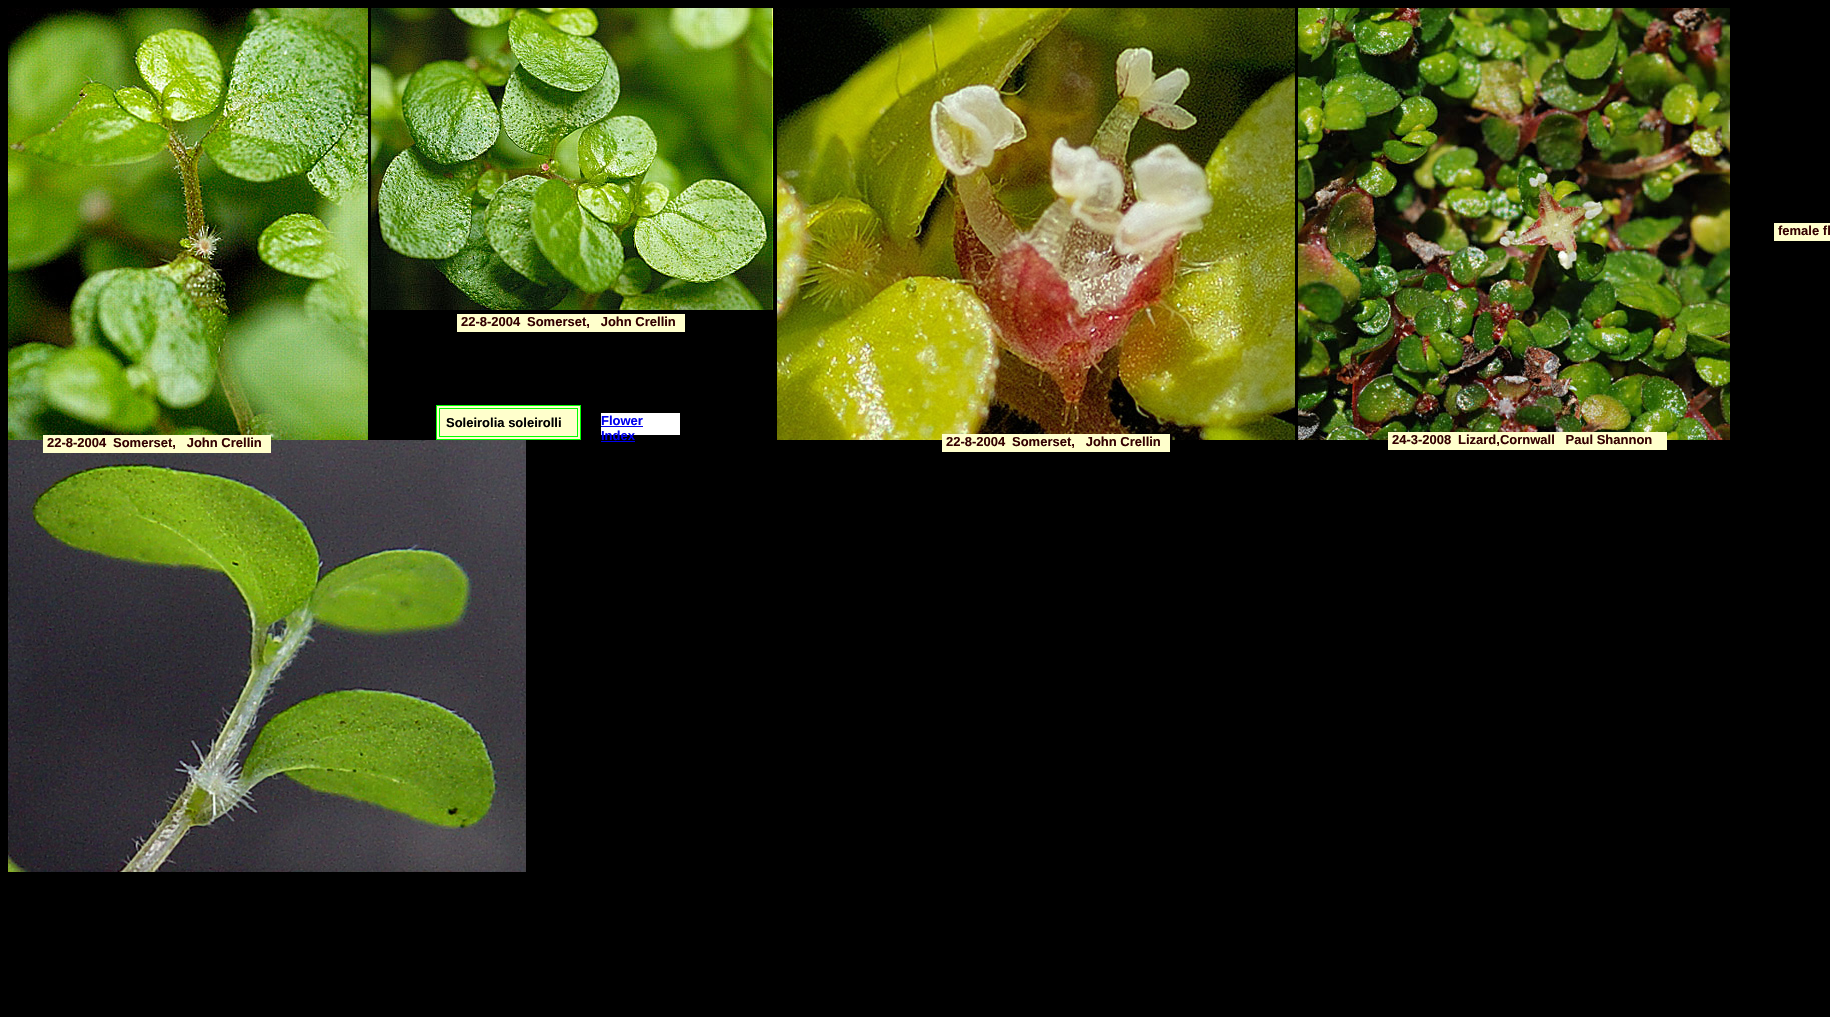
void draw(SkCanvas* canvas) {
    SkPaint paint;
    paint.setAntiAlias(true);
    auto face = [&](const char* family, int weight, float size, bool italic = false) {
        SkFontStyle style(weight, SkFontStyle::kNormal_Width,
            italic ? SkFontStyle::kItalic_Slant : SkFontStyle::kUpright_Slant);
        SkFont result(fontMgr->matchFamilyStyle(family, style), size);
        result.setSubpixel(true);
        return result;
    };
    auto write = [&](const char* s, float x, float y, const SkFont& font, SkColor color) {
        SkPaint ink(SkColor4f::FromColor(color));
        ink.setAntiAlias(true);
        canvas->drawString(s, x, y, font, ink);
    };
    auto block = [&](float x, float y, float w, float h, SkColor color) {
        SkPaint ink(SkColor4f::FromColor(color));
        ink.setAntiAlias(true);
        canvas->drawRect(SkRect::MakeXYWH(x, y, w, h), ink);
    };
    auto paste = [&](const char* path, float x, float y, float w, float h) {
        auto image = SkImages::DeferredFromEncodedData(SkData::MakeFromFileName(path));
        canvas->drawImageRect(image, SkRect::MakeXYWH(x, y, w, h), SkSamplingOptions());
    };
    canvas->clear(SK_ColorBLACK);
    paste("pic1.png", 8, 8, 360, 432);
    paste("pic2.png", 371, 8, 403, 302);
    paste("pic3.png", 777, 8, 518, 432);
    paste("pic4.png", 1298, 8, 432, 432);
    block(1774, 223, 56, 18, SkColorSetRGB(255, 255, 204));
    auto kFont1 = face("Liberation Sans", 700, 13);
    write("female fl", 1778, 235, kFont1, SkColorSetRGB(51, 0, 0));
    block(457, 314, 228, 18, SkColorSetRGB(255, 255, 204));
    write("22-8-2004", 461, 326, kFont1, SkColorSetRGB(51, 0, 0));
    write("Somerset,   John Crellin", 527, 326, kFont1, SkColorSetRGB(51, 0, 0));
    paint.setColor(SkColorSetRGB(255, 255, 204));
    canvas->drawRect(SkRect::MakeXYWH(436.5f, 405.5f, 144, 34), paint);
    paint.setStyle(SkPaint::kStroke_Style);
    paint.setStrokeWidth(1);
    paint.setColor(SkColorSetRGB(0, 255, 0));
    canvas->drawRect(SkRect::MakeXYWH(436.5f, 405.5f, 144, 34), paint);
    canvas->drawRect(SkRect::MakeXYWH(439.5f, 408.5f, 138, 28), paint);
    write("Soleirolia soleirolli", 446, 427, kFont1, SK_ColorBLACK);
    block(601, 413, 79, 22, SK_ColorWHITE);
    write("Flower", 601, 425, kFont1, SkColorSetRGB(0, 0, 238));
    block(601, 426, 42, 1, SkColorSetRGB(0, 0, 238));
    write("Index", 601, 440, kFont1, SkColorSetRGB(0, 0, 238));
    block(601, 441, 34, 1, SkColorSetRGB(0, 0, 238));
    paste("pic5.png", 8, 440, 518, 432);
    block(43, 435, 228, 18, SkColorSetRGB(255, 255, 204));
    write("22-8-2004", 47, 447, kFont1, SkColorSetRGB(51, 0, 0));
    write("Somerset,   John Crellin", 113, 447, kFont1, SkColorSetRGB(51, 0, 0));
    block(942, 434, 228, 18, SkColorSetRGB(255, 255, 204));
    write("22-8-2004", 946, 446, kFont1, SkColorSetRGB(51, 0, 0));
    write("Somerset,   John Crellin", 1012, 446, kFont1, SkColorSetRGB(51, 0, 0));
    block(1388, 432, 279, 18, SkColorSetRGB(255, 255, 204));
    write("24-3-2008", 1392, 444, kFont1, SkColorSetRGB(51, 0, 0));
    write("Lizard,Cornwall   Paul Shannon", 1458, 444, kFont1, SkColorSetRGB(51, 0, 0));
}
